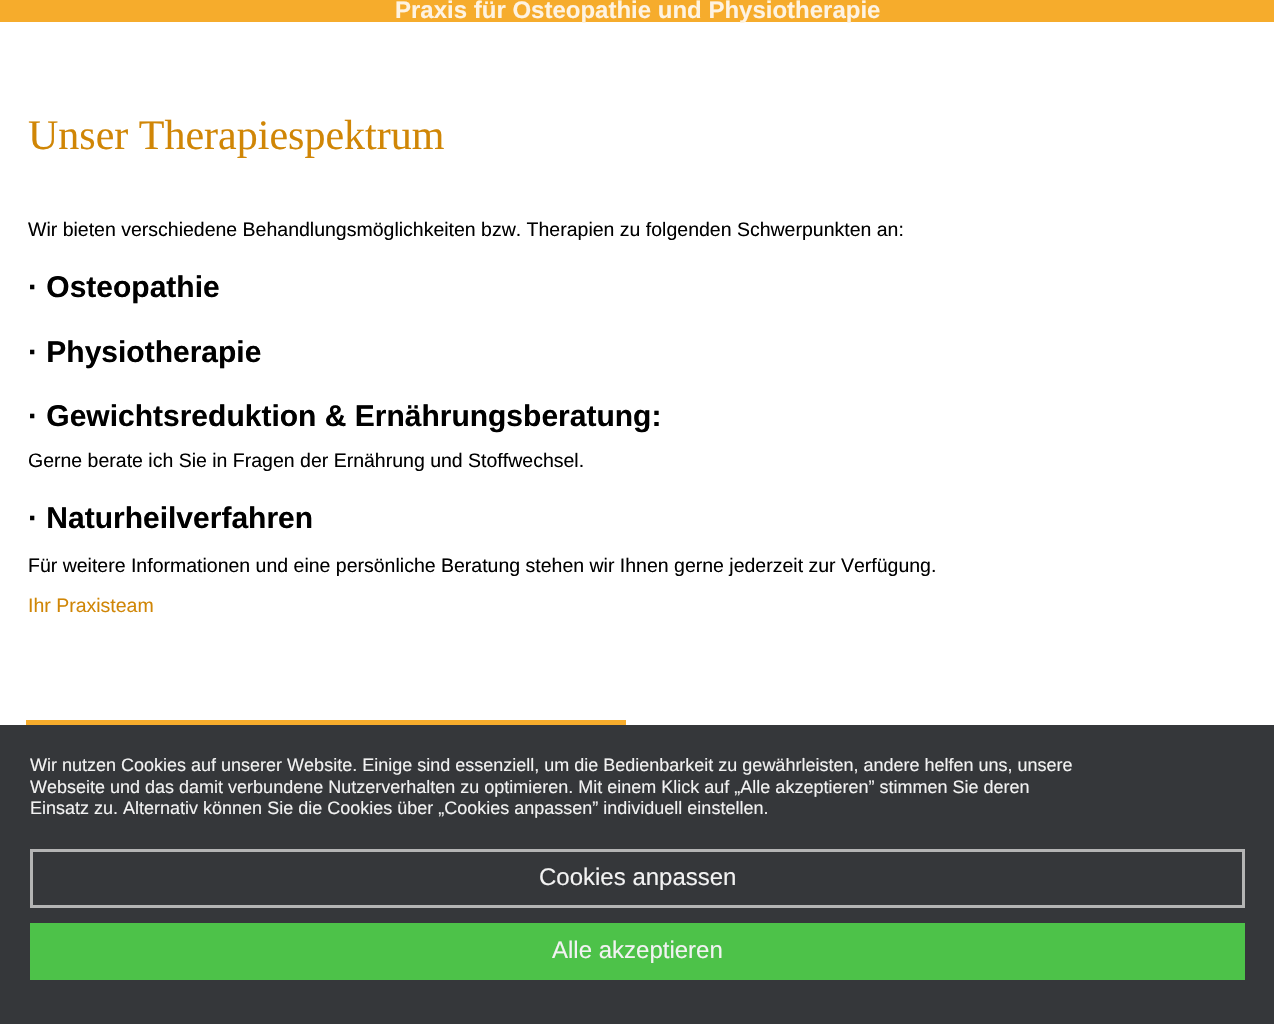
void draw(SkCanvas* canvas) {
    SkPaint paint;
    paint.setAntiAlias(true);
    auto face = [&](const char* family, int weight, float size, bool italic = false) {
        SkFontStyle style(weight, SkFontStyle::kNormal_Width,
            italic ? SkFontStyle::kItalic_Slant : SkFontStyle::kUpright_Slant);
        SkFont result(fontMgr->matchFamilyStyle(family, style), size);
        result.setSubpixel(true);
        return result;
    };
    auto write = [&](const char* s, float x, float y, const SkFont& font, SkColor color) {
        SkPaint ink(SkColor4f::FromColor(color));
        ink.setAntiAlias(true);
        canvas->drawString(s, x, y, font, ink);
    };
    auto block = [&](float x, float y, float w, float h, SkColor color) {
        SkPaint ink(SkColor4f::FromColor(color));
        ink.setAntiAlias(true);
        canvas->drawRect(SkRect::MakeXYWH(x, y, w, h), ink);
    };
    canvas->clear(SK_ColorWHITE);
    block(0, 0, 1274, 22, SkColorSetRGB(246, 172, 44));
    auto kFont1 = face("Liberation Sans", 700, 24);
    write("Praxis für Osteopathie und Physiotherapie", 395, 18, kFont1, SkColorSetRGB(254, 243, 226));
    auto kFont2 = face("Liberation Serif", 400, 42);
    write("Unser Therapiespektrum", 28, 149, kFont2, SkColorSetRGB(208, 134, 6));
    auto kFont3 = face("Liberation Sans", 400, 19.5f);
    write("Wir bieten verschiedene Behandlungsmöglichkeiten bzw. Therapien zu folgenden Schwerpunkten an:", 28, 236, kFont3, SK_ColorBLACK);
    auto kFont4 = face("Liberation Sans", 700, 30);
    write("· Osteopathie", 28, 297, kFont4, SK_ColorBLACK);
    write("· Physiotherapie", 28, 362, kFont4, SK_ColorBLACK);
    write("· Gewichtsreduktion & Ernährungsberatung:", 28, 426, kFont4, SK_ColorBLACK);
    write("Gerne berate ich Sie in Fragen der Ernährung und Stoffwechsel.", 28, 467, kFont3, SK_ColorBLACK);
    write("· Naturheilverfahren", 28, 528, kFont4, SK_ColorBLACK);
    write("Für weitere Informationen und eine persönliche Beratung stehen wir Ihnen gerne jederzeit zur Verfügung.", 28, 572, kFont3, SK_ColorBLACK);
    write("Ihr Praxisteam", 28, 612, kFont3, SkColorSetRGB(208, 134, 6));
    block(26, 720, 600, 5, SkColorSetRGB(246, 172, 44));
    block(0, 725, 1274, 299, SkColorSetRGB(53, 55, 58));
    auto kFont5 = face("Liberation Sans", 400, 18);
    write("Wir nutzen Cookies auf unserer Website. Einige sind essenziell, um die Bedienbarkeit zu gewährleisten, andere helfen uns, unsere", 30, 771, kFont5, SkColorSetRGB(242, 242, 242));
    write("Webseite und das damit verbundene Nutzerverhalten zu optimieren. Mit einem Klick auf „Alle akzeptieren” stimmen Sie deren", 30, 793, kFont5, SkColorSetRGB(242, 242, 242));
    write("Einsatz zu. Alternativ können Sie die Cookies über „Cookies anpassen” individuell einstellen.", 30, 814, kFont5, SkColorSetRGB(242, 242, 242));
    paint.setStyle(SkPaint::kStroke_Style);
    paint.setStrokeWidth(3);
    paint.setColor(SkColorSetRGB(180, 180, 180));
    canvas->drawRect(SkRect::MakeXYWH(31.5f, 850.5f, 1212, 56), paint);
    auto kFont6 = face("Liberation Sans", 400, 24);
    write("Cookies anpassen", 539, 885, kFont6, SkColorSetRGB(242, 242, 242));
    block(30, 923, 1215, 57, SkColorSetRGB(77, 194, 73));
    write("Alle akzeptieren", 552, 958, kFont6, SkColorSetRGB(242, 242, 242));
}
